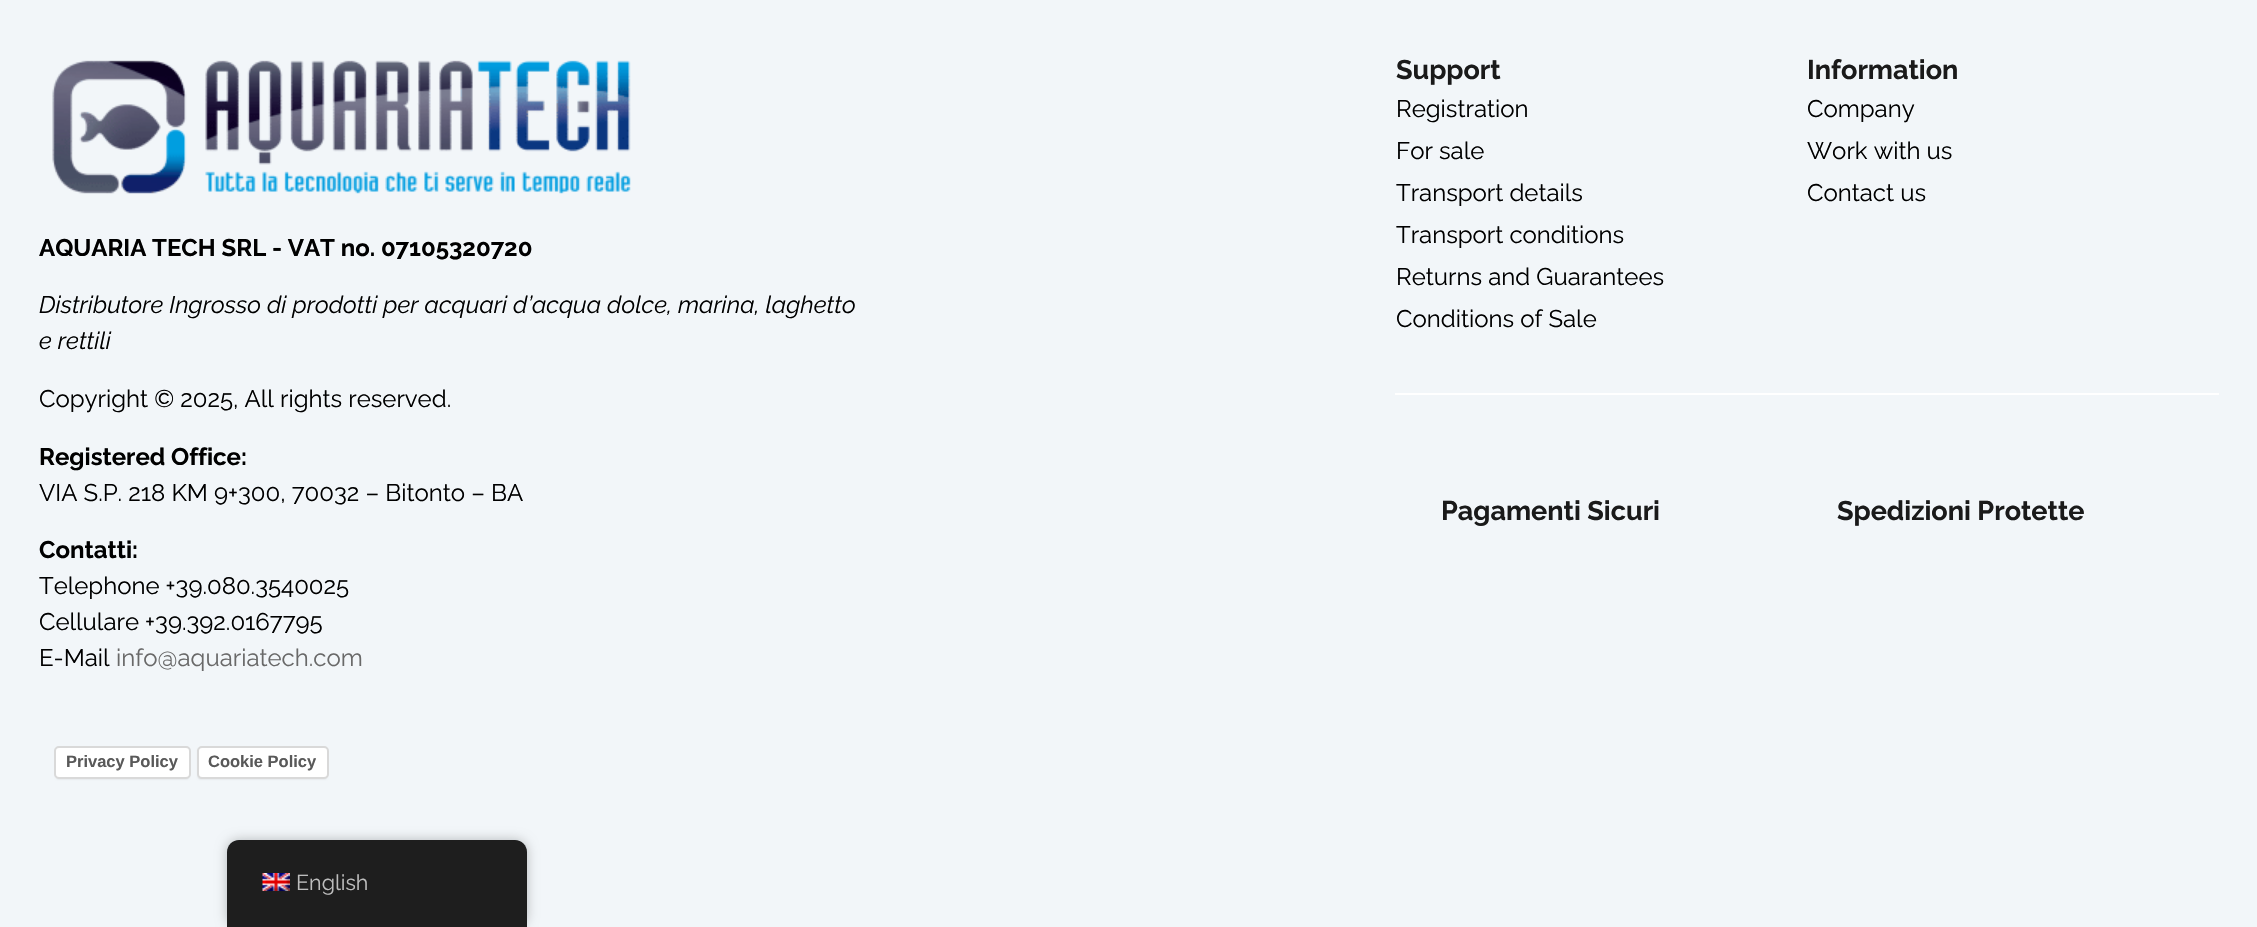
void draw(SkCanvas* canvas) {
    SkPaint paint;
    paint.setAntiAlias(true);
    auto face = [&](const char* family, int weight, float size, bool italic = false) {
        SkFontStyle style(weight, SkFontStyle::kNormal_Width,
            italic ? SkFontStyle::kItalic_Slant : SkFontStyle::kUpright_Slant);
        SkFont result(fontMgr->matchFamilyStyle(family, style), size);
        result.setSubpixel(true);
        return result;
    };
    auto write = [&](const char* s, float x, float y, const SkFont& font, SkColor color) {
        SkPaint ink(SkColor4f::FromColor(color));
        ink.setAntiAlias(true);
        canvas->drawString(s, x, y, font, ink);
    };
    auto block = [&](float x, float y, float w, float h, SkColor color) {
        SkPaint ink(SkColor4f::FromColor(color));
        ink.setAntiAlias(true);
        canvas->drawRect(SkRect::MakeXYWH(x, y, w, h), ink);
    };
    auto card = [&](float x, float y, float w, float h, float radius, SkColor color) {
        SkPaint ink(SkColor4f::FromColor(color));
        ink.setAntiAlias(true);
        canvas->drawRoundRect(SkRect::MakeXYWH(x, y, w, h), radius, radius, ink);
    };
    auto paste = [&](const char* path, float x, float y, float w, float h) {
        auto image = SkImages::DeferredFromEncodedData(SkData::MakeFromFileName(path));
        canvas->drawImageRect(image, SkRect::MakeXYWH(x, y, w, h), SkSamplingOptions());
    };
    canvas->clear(SkColorSetRGB(242, 246, 249));
    paste("pic1.png", 52, 60, 579, 134);
    auto kFont1 = face("Raleway", 700, 24);
    write("AQUARIA TECH SRL - VAT no. 07105320720", 39, 256, kFont1, SK_ColorBLACK);
    auto kFont2 = face("Raleway", 400, 24, true);
    write("Distributore Ingrosso di prodotti per acquari d’acqua dolce, marina, laghetto", 39, 313, kFont2, SK_ColorBLACK);
    write("e rettili", 39, 349, kFont2, SK_ColorBLACK);
    auto kFont3 = face("Raleway", 400, 24);
    write("Copyright © 2025, All rights reserved.", 39, 407, kFont3, SK_ColorBLACK);
    write("Registered Office:", 39, 465, kFont1, SK_ColorBLACK);
    write("VIA S.P. 218 KM 9+300, 70032 – Bitonto – BA", 39, 501, kFont3, SK_ColorBLACK);
    write("Contatti:", 39, 558, kFont1, SK_ColorBLACK);
    write("Telephone +39.080.3540025", 39, 594, kFont3, SK_ColorBLACK);
    write("Cellulare +39.392.0167795", 39, 630, kFont3, SK_ColorBLACK);
    write("E-Mail", 39, 666, kFont3, SK_ColorBLACK);
    write("info@aquariatech.com", 116, 666, kFont3, SkColorSetRGB(105, 105, 105));
    paint.setColor(SkColorSetARGB(38, 0, 0, 0));
    paint.setMaskFilter(SkMaskFilter::MakeBlur(kNormal_SkBlurStyle, 1));
    canvas->drawRoundRect(SkRect::MakeXYWH(56, 749, 133, 30), 3, 3, paint);
    paint.setMaskFilter(nullptr);
    card(54, 746, 137, 33, 5, SK_ColorWHITE);
    paint.setStyle(SkPaint::kStroke_Style);
    paint.setStrokeWidth(2);
    canvas->drawRoundRect(SkRect::MakeXYWH(55, 747, 135, 31), 4, 4, paint);
    auto kFont4 = face("Liberation Sans", 700, 16.5f);
    write("Privacy Policy", 66, 767, kFont4, SkColorSetRGB(89, 89, 89));
    paint.setStyle(SkPaint::kFill_Style);
    paint.setMaskFilter(SkMaskFilter::MakeBlur(kNormal_SkBlurStyle, 1));
    canvas->drawRoundRect(SkRect::MakeXYWH(198, 749, 129, 30), 3, 3, paint);
    paint.setMaskFilter(nullptr);
    card(197, 746, 132, 33, 5, SK_ColorWHITE);
    paint.setStyle(SkPaint::kStroke_Style);
    canvas->drawRoundRect(SkRect::MakeXYWH(198, 747, 130, 31), 4, 4, paint);
    write("Cookie Policy", 208, 767, kFont4, SkColorSetRGB(89, 89, 89));
    auto kFont5 = face("Raleway", 700, 27);
    write("Support", 1396, 79, kFont5, SkColorSetRGB(26, 26, 26));
    write("Registration", 1396, 117, kFont3, SK_ColorBLACK);
    write("For sale", 1396, 159, kFont3, SK_ColorBLACK);
    write("Transport details", 1396, 201, kFont3, SK_ColorBLACK);
    write("Transport conditions", 1396, 243, kFont3, SK_ColorBLACK);
    write("Returns and Guarantees", 1396, 285, kFont3, SK_ColorBLACK);
    write("Conditions of Sale", 1396, 327, kFont3, SK_ColorBLACK);
    write("Information", 1807, 79, kFont5, SkColorSetRGB(26, 26, 26));
    write("Company", 1807, 117, kFont3, SK_ColorBLACK);
    write("Work with us", 1807, 159, kFont3, SK_ColorBLACK);
    write("Contact us", 1807, 201, kFont3, SK_ColorBLACK);
    block(1395, 393, 824, 2, SK_ColorWHITE);
    write("Pagamenti Sicuri", 1441, 520, kFont5, SkColorSetRGB(26, 26, 26));
    write("Spedizioni Protette", 1837, 520, kFont5, SkColorSetRGB(26, 26, 26));
    paint.setStyle(SkPaint::kFill_Style);
    paint.setColor(SkColorSetARGB(64, 0, 0, 0));
    paint.setMaskFilter(SkMaskFilter::MakeBlur(kNormal_SkBlurStyle, 6));
    canvas->drawRoundRect(SkRect::MakeXYWH(227, 840, 300, 87), 12, 12, paint);
    paint.setMaskFilter(nullptr);
    paint.setColor(SkColorSetRGB(30, 30, 30));
    canvas->drawPath(SkPathBuilder().moveTo(239, 840).lineTo(515, 840).cubicTo(521.5f, 840, 527, 845.5f, 527, 852).lineTo(527, 927).lineTo(227, 927).lineTo(227, 852).cubicTo(227, 845.5f, 232.5f, 840, 239, 840).close().detach(), paint);
    paste("pic2.png", 262, 873, 28, 18);
    auto kFont6 = face("Raleway", 400, 21.5f);
    write("English", 296, 890, kFont6, SkColorSetRGB(189, 189, 189));
}
